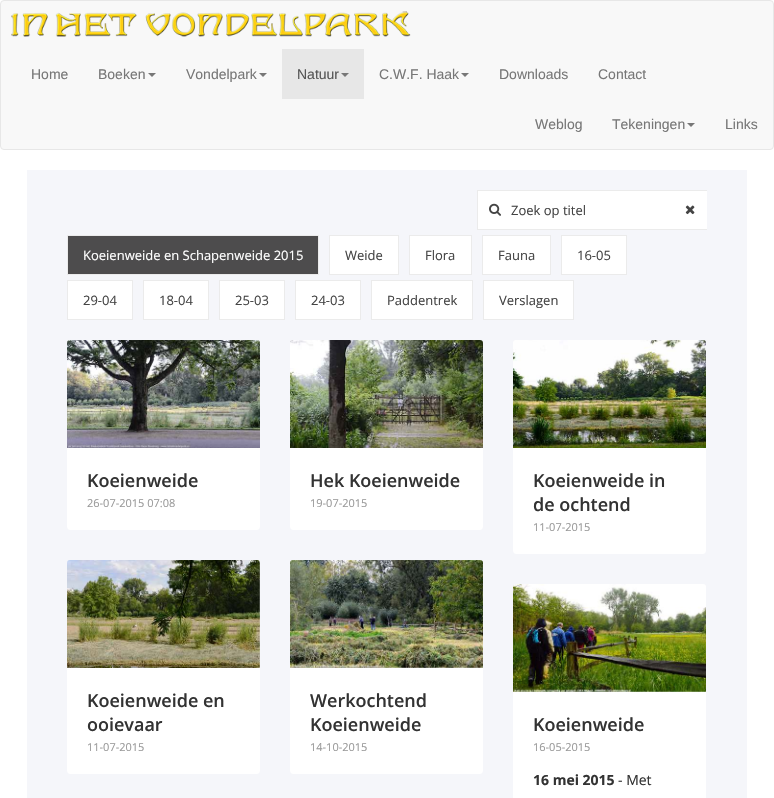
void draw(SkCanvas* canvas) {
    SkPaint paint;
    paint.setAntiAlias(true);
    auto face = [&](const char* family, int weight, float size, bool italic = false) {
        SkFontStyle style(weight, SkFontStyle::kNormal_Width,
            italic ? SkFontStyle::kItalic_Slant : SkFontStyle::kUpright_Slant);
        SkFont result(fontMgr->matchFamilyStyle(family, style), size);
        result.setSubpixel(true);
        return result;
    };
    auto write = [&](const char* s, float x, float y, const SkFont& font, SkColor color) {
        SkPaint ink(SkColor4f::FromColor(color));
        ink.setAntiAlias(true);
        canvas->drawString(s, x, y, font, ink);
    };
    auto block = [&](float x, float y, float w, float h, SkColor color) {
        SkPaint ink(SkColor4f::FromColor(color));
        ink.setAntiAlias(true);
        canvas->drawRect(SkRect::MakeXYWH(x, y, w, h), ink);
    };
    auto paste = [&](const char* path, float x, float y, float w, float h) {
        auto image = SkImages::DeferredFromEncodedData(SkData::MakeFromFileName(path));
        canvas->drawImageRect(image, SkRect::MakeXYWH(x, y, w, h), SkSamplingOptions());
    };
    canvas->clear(SK_ColorWHITE);
    paint.setColor(SkColorSetRGB(248, 248, 248));
    canvas->drawRoundRect(SkRect::MakeXYWH(0.5f, 0.5f, 773, 149), 3.5f, 3.5f, paint);
    paint.setStyle(SkPaint::kStroke_Style);
    paint.setStrokeWidth(1);
    paint.setColor(SkColorSetRGB(231, 231, 231));
    canvas->drawRoundRect(SkRect::MakeXYWH(0.5f, 0.5f, 773, 149), 3.5f, 3.5f, paint);
    paste("pic1.png", 11, 11, 400, 26);
    auto kFont1 = face("Liberation Sans", 400, 14);
    write("Home", 31, 79, kFont1, SkColorSetRGB(119, 119, 119));
    write("Boeken", 98, 79, kFont1, SkColorSetRGB(119, 119, 119));
    paint.setStyle(SkPaint::kFill_Style);
    paint.setColor(SkColorSetRGB(119, 119, 119));
    canvas->drawPath(SkPathBuilder().moveTo(148, 73).lineTo(156, 73).lineTo(152, 77).close().detach(), paint);
    write("Vondelpark", 186, 79, kFont1, SkColorSetRGB(119, 119, 119));
    canvas->drawPath(SkPathBuilder().moveTo(259, 73).lineTo(267, 73).lineTo(263, 77).close().detach(), paint);
    block(282, 49, 82, 50, SkColorSetRGB(231, 231, 231));
    write("Natuur", 297, 79, kFont1, SkColorSetRGB(85, 85, 85));
    canvas->drawPath(SkPathBuilder().moveTo(341, 73).lineTo(349, 73).lineTo(345, 77).close().detach(), paint);
    write("C.W.F. Haak", 379, 79, kFont1, SkColorSetRGB(119, 119, 119));
    canvas->drawPath(SkPathBuilder().moveTo(461, 73).lineTo(469, 73).lineTo(465, 77).close().detach(), paint);
    write("Downloads", 499, 79, kFont1, SkColorSetRGB(119, 119, 119));
    write("Contact", 598, 79, kFont1, SkColorSetRGB(119, 119, 119));
    write("Weblog", 535, 129, kFont1, SkColorSetRGB(119, 119, 119));
    write("Tekeningen", 612, 129, kFont1, SkColorSetRGB(119, 119, 119));
    canvas->drawPath(SkPathBuilder().moveTo(687, 123).lineTo(695, 123).lineTo(691, 127).close().detach(), paint);
    write("Links", 725, 129, kFont1, SkColorSetRGB(119, 119, 119));
    block(27, 170, 720, 628, SkColorSetRGB(245, 246, 250));
    paint.setStyle(SkPaint::kStroke_Style);
    paint.setColor(SkColorSetRGB(235, 235, 235));
    canvas->drawRect(SkRect::MakeXYWH(477.5f, 190.5f, 229, 39), paint);
    block(478, 191, 229, 38, SK_ColorWHITE);
    paste("pic2.png", 489, 203, 12, 13);
    auto kFont2 = face("Open Sans", 400, 13);
    write("Zoek op titel", 511, 215, kFont2, SkColorSetRGB(68, 68, 68));
    paste("pic3.png", 685, 205, 10, 10);
    paint.setStyle(SkPaint::kFill_Style);
    paint.setColor(SkColorSetRGB(77, 76, 77));
    canvas->drawRect(SkRect::MakeXYWH(67.5f, 235.5f, 251, 39), paint);
    paint.setStyle(SkPaint::kStroke_Style);
    paint.setColor(SkColorSetRGB(235, 235, 235));
    canvas->drawRect(SkRect::MakeXYWH(67.5f, 235.5f, 251, 39), paint);
    write("Koeienweide en Schapenweide 2015", 83, 260, kFont2, SK_ColorWHITE);
    paint.setStyle(SkPaint::kFill_Style);
    paint.setColor(SK_ColorWHITE);
    canvas->drawRect(SkRect::MakeXYWH(329.5f, 235.5f, 69, 39), paint);
    paint.setStyle(SkPaint::kStroke_Style);
    paint.setColor(SkColorSetRGB(235, 235, 235));
    canvas->drawRect(SkRect::MakeXYWH(329.5f, 235.5f, 69, 39), paint);
    write("Weide", 345, 260, kFont2, SkColorSetRGB(68, 68, 68));
    paint.setStyle(SkPaint::kFill_Style);
    paint.setColor(SK_ColorWHITE);
    canvas->drawRect(SkRect::MakeXYWH(409.5f, 235.5f, 62, 39), paint);
    paint.setStyle(SkPaint::kStroke_Style);
    paint.setColor(SkColorSetRGB(235, 235, 235));
    canvas->drawRect(SkRect::MakeXYWH(409.5f, 235.5f, 62, 39), paint);
    write("Flora", 425, 260, kFont2, SkColorSetRGB(68, 68, 68));
    paint.setStyle(SkPaint::kFill_Style);
    paint.setColor(SK_ColorWHITE);
    canvas->drawRect(SkRect::MakeXYWH(482.5f, 235.5f, 68, 39), paint);
    paint.setStyle(SkPaint::kStroke_Style);
    paint.setColor(SkColorSetRGB(235, 235, 235));
    canvas->drawRect(SkRect::MakeXYWH(482.5f, 235.5f, 68, 39), paint);
    write("Fauna", 498, 260, kFont2, SkColorSetRGB(68, 68, 68));
    paint.setStyle(SkPaint::kFill_Style);
    paint.setColor(SK_ColorWHITE);
    canvas->drawRect(SkRect::MakeXYWH(561.5f, 235.5f, 65, 39), paint);
    paint.setStyle(SkPaint::kStroke_Style);
    paint.setColor(SkColorSetRGB(235, 235, 235));
    canvas->drawRect(SkRect::MakeXYWH(561.5f, 235.5f, 65, 39), paint);
    write("16-05", 577, 260, kFont2, SkColorSetRGB(68, 68, 68));
    paint.setStyle(SkPaint::kFill_Style);
    paint.setColor(SK_ColorWHITE);
    canvas->drawRect(SkRect::MakeXYWH(67.5f, 280.5f, 65, 39), paint);
    paint.setStyle(SkPaint::kStroke_Style);
    paint.setColor(SkColorSetRGB(235, 235, 235));
    canvas->drawRect(SkRect::MakeXYWH(67.5f, 280.5f, 65, 39), paint);
    write("29-04", 83, 305, kFont2, SkColorSetRGB(68, 68, 68));
    paint.setStyle(SkPaint::kFill_Style);
    paint.setColor(SK_ColorWHITE);
    canvas->drawRect(SkRect::MakeXYWH(143.5f, 280.5f, 65, 39), paint);
    paint.setStyle(SkPaint::kStroke_Style);
    paint.setColor(SkColorSetRGB(235, 235, 235));
    canvas->drawRect(SkRect::MakeXYWH(143.5f, 280.5f, 65, 39), paint);
    write("18-04", 159, 305, kFont2, SkColorSetRGB(68, 68, 68));
    paint.setStyle(SkPaint::kFill_Style);
    paint.setColor(SK_ColorWHITE);
    canvas->drawRect(SkRect::MakeXYWH(219.5f, 280.5f, 65, 39), paint);
    paint.setStyle(SkPaint::kStroke_Style);
    paint.setColor(SkColorSetRGB(235, 235, 235));
    canvas->drawRect(SkRect::MakeXYWH(219.5f, 280.5f, 65, 39), paint);
    write("25-03", 235, 305, kFont2, SkColorSetRGB(68, 68, 68));
    paint.setStyle(SkPaint::kFill_Style);
    paint.setColor(SK_ColorWHITE);
    canvas->drawRect(SkRect::MakeXYWH(295.5f, 280.5f, 65, 39), paint);
    paint.setStyle(SkPaint::kStroke_Style);
    paint.setColor(SkColorSetRGB(235, 235, 235));
    canvas->drawRect(SkRect::MakeXYWH(295.5f, 280.5f, 65, 39), paint);
    write("24-03", 311, 305, kFont2, SkColorSetRGB(68, 68, 68));
    paint.setStyle(SkPaint::kFill_Style);
    paint.setColor(SK_ColorWHITE);
    canvas->drawRect(SkRect::MakeXYWH(371.5f, 280.5f, 101, 39), paint);
    paint.setStyle(SkPaint::kStroke_Style);
    paint.setColor(SkColorSetRGB(235, 235, 235));
    canvas->drawRect(SkRect::MakeXYWH(371.5f, 280.5f, 101, 39), paint);
    write("Paddentrek", 387, 305, kFont2, SkColorSetRGB(68, 68, 68));
    paint.setStyle(SkPaint::kFill_Style);
    paint.setColor(SK_ColorWHITE);
    canvas->drawRect(SkRect::MakeXYWH(483.5f, 280.5f, 90, 39), paint);
    paint.setStyle(SkPaint::kStroke_Style);
    paint.setColor(SkColorSetRGB(235, 235, 235));
    canvas->drawRect(SkRect::MakeXYWH(483.5f, 280.5f, 90, 39), paint);
    write("Verslagen", 499, 305, kFont2, SkColorSetRGB(68, 68, 68));
    paste("pic4.png", 67, 340, 193, 108);
    paint.setStyle(SkPaint::kFill_Style);
    paint.setColor(SK_ColorWHITE);
    canvas->drawPath(SkPathBuilder().moveTo(67, 448).lineTo(260, 448).lineTo(260, 527).cubicTo(260, 528.5f, 258.5f, 530, 257, 530).lineTo(70, 530).cubicTo(68.5f, 530, 67, 528.5f, 67, 527).close().detach(), paint);
    auto kFont3 = face("Open Sans", 600, 18);
    write("Koeienweide", 87, 487, kFont3, SkColorSetRGB(51, 51, 51));
    auto kFont4 = face("Open Sans", 400, 11);
    write("26-07-2015 07:08", 87, 507, kFont4, SkColorSetRGB(153, 153, 153));
    paste("pic5.png", 290, 340, 193, 108);
    canvas->drawPath(SkPathBuilder().moveTo(290, 448).lineTo(483, 448).lineTo(483, 527).cubicTo(483, 528.5f, 481.5f, 530, 480, 530).lineTo(293, 530).cubicTo(291.5f, 530, 290, 528.5f, 290, 527).close().detach(), paint);
    write("Hek Koeienweide", 310, 487, kFont3, SkColorSetRGB(51, 51, 51));
    write("19-07-2015", 310, 507, kFont4, SkColorSetRGB(153, 153, 153));
    paste("pic6.png", 513, 340, 193, 108);
    canvas->drawPath(SkPathBuilder().moveTo(513, 448).lineTo(706, 448).lineTo(706, 551).cubicTo(706, 552.5f, 704.5f, 554, 703, 554).lineTo(516, 554).cubicTo(514.5f, 554, 513, 552.5f, 513, 551).close().detach(), paint);
    write("Koeienweide in", 533, 487, kFont3, SkColorSetRGB(51, 51, 51));
    write("de ochtend", 533, 511, kFont3, SkColorSetRGB(51, 51, 51));
    write("11-07-2015", 533, 531, kFont4, SkColorSetRGB(153, 153, 153));
    paste("pic7.png", 67, 560, 193, 108);
    canvas->drawPath(SkPathBuilder().moveTo(67, 668).lineTo(260, 668).lineTo(260, 771).cubicTo(260, 772.5f, 258.5f, 774, 257, 774).lineTo(70, 774).cubicTo(68.5f, 774, 67, 772.5f, 67, 771).close().detach(), paint);
    write("Koeienweide en", 87, 707, kFont3, SkColorSetRGB(51, 51, 51));
    write("ooievaar", 87, 731, kFont3, SkColorSetRGB(51, 51, 51));
    write("11-07-2015", 87, 751, kFont4, SkColorSetRGB(153, 153, 153));
    paste("pic8.png", 290, 560, 193, 108);
    canvas->drawPath(SkPathBuilder().moveTo(290, 668).lineTo(483, 668).lineTo(483, 771).cubicTo(483, 772.5f, 481.5f, 774, 480, 774).lineTo(293, 774).cubicTo(291.5f, 774, 290, 772.5f, 290, 771).close().detach(), paint);
    write("Werkochtend", 310, 707, kFont3, SkColorSetRGB(51, 51, 51));
    write("Koeienweide", 310, 731, kFont3, SkColorSetRGB(51, 51, 51));
    write("14-10-2015", 310, 751, kFont4, SkColorSetRGB(153, 153, 153));
    paste("pic9.png", 513, 584, 193, 108);
    block(513, 692, 193, 106, SK_ColorWHITE);
    write("Koeienweide", 533, 731, kFont3, SkColorSetRGB(51, 51, 51));
    write("16-05-2015", 533, 751, kFont4, SkColorSetRGB(153, 153, 153));
    auto kFont5 = face("Open Sans", 700, 14);
    write("16 mei 2015", 533, 785, kFont5, SkColorSetRGB(51, 51, 51));
    auto kFont6 = face("Open Sans", 400, 14);
    write("- Met", 618, 785, kFont6, SkColorSetRGB(51, 51, 51));
}
